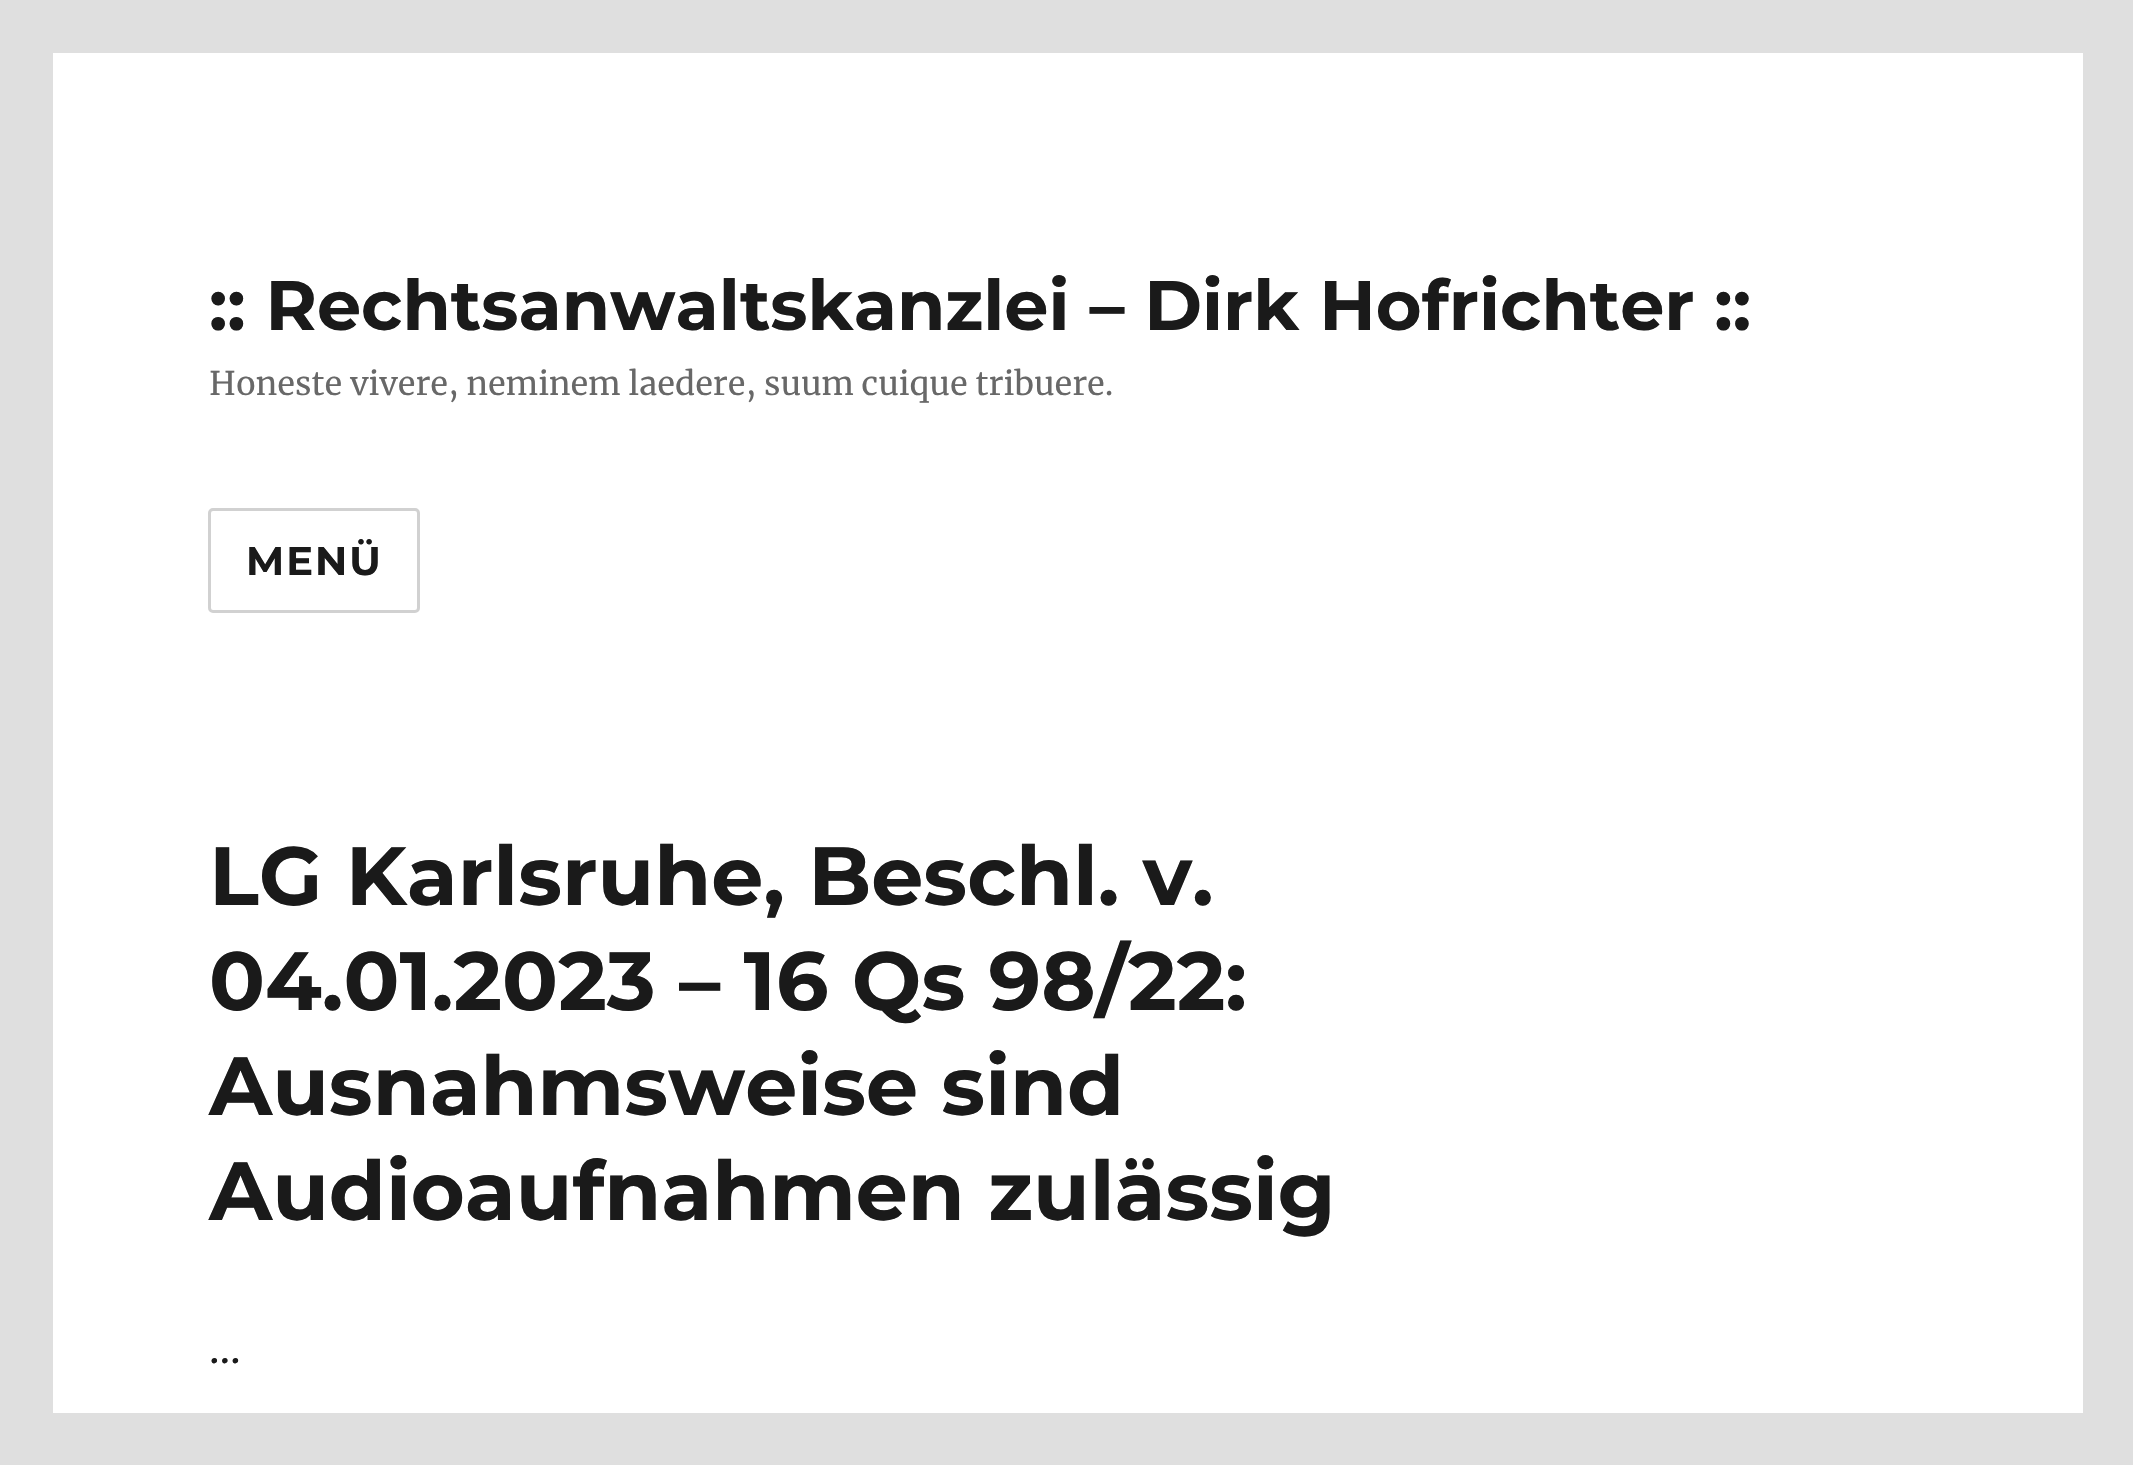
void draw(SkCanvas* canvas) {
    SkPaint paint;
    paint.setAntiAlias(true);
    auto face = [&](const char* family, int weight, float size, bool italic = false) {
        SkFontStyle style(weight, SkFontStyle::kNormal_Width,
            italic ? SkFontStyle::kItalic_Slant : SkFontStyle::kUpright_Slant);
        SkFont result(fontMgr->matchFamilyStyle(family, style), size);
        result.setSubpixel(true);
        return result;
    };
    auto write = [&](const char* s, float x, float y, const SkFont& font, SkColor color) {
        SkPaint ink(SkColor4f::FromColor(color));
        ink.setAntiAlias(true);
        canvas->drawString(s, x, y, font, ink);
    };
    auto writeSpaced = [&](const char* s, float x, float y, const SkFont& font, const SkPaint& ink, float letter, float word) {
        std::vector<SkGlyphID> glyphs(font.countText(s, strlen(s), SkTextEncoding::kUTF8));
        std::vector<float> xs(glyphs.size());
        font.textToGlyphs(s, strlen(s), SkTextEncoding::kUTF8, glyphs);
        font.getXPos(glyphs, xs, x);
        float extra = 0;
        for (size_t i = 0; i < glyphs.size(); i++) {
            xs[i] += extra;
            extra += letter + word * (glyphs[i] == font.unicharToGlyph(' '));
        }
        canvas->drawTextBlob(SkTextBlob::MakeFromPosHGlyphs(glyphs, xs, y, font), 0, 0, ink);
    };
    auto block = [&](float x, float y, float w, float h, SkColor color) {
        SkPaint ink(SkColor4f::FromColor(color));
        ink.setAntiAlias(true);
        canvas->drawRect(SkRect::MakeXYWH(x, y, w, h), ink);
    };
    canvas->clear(SkColorSetRGB(223, 223, 223));
    block(53, 53, 2030, 1360, SK_ColorWHITE);
    auto kFont1 = face("Montserrat", 100, 70);
    write(":: Rechtsanwaltskanzlei – Dirk Hofrichter ::", 209, 330, kFont1, SkColorSetRGB(26, 26, 26));
    auto kFont2 = face("Merriweather", 400, 32.5f);
    write("Honeste vivere, neminem laedere, suum cuique tribuere.", 209, 395, kFont2, SkColorSetRGB(104, 104, 104));
    paint.setStyle(SkPaint::kStroke_Style);
    paint.setStrokeWidth(3);
    paint.setColor(SkColorSetRGB(209, 209, 209));
    canvas->drawRoundRect(SkRect::MakeXYWH(209.5f, 509.5f, 209, 102), 3.5f, 3.5f, paint);
    auto kFont3 = face("Montserrat", 100, 40);
    paint.setStyle(SkPaint::kFill_Style);
    paint.setColor(SkColorSetRGB(26, 26, 26));
    writeSpaced("MENÜ", 246, 575, kFont3, paint, 2, 0);
    auto kFont4 = face("Montserrat", 100, 82.5f);
    write("LG Karlsruhe, Beschl. v.", 209, 905, kFont4, SkColorSetRGB(26, 26, 26));
    write("04.01.2023 – 16 Qs 98/22:", 209, 1010, kFont4, SkColorSetRGB(26, 26, 26));
    write("Ausnahmsweise sind", 209, 1115, kFont4, SkColorSetRGB(26, 26, 26));
    write("Audioaufnahmen zulässig", 209, 1220, kFont4, SkColorSetRGB(26, 26, 26));
    auto kFont5 = face("Merriweather", 400, 40);
    write("…", 209, 1363, kFont5, SkColorSetRGB(26, 26, 26));
}
